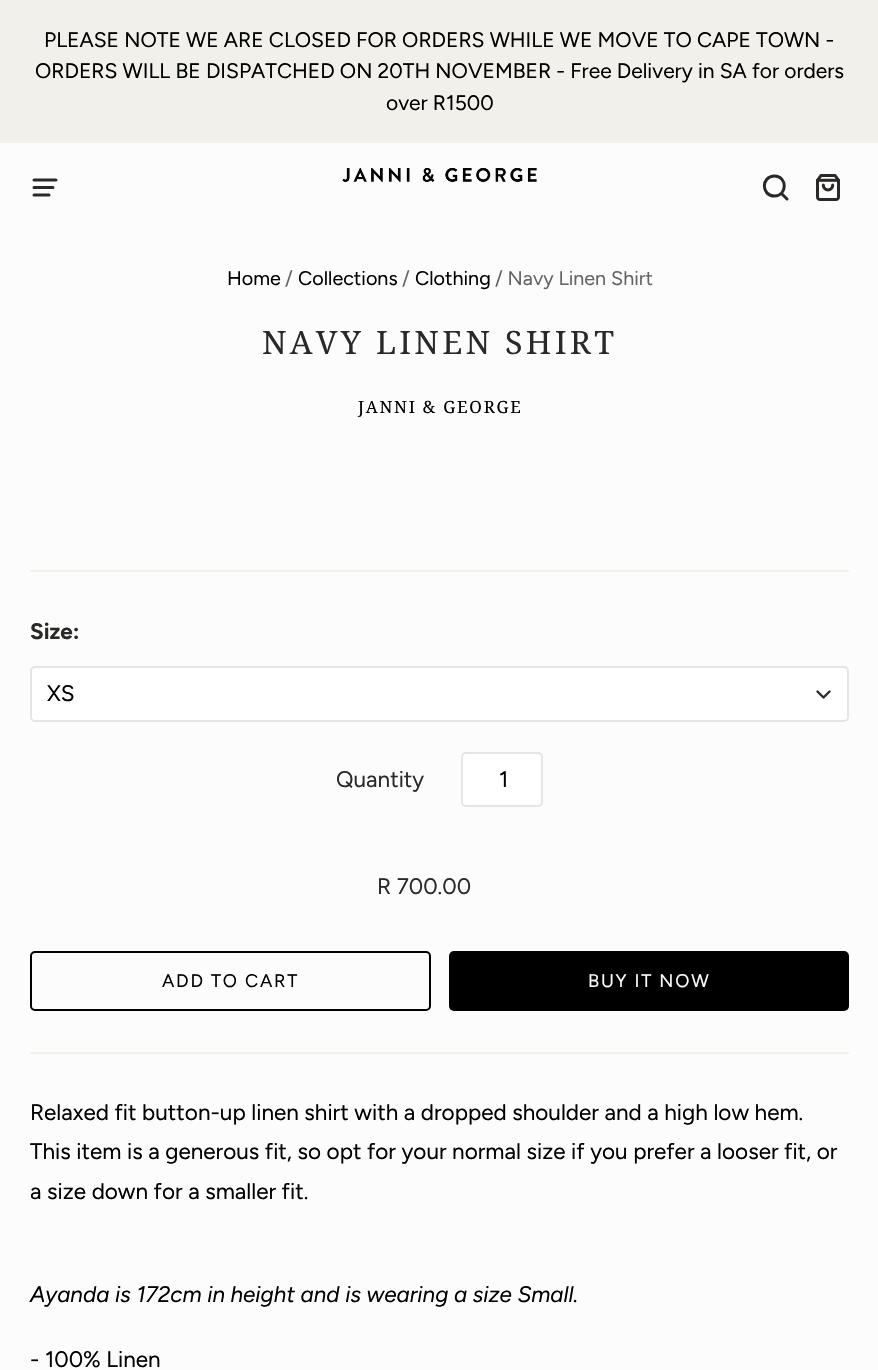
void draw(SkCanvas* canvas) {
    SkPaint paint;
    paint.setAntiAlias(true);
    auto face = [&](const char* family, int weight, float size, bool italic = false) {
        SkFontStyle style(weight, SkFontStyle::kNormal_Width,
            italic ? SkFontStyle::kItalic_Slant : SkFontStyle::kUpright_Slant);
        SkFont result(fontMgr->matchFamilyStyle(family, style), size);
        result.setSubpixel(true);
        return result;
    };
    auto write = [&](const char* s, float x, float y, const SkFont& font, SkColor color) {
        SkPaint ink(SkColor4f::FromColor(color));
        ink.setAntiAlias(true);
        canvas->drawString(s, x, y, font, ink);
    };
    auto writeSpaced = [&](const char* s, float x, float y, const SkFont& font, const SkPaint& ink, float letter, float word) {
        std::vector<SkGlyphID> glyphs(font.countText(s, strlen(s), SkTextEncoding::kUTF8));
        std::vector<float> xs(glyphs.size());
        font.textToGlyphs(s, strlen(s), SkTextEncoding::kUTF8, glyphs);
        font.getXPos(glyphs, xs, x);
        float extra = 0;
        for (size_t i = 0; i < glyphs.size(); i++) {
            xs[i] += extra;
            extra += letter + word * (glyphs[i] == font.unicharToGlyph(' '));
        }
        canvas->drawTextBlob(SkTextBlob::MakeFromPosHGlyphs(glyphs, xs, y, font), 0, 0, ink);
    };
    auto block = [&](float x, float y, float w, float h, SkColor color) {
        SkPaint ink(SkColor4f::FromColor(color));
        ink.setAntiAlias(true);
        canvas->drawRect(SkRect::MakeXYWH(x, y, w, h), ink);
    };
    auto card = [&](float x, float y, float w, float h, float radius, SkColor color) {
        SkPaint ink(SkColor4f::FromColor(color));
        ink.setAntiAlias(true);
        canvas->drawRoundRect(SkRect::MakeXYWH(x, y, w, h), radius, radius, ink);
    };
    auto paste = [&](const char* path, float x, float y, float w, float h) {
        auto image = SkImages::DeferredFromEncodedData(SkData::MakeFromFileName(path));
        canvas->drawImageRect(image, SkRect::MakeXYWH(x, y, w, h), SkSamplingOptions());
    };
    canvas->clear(SkColorSetRGB(252, 252, 252));
    block(0, 0, 878, 143, SkColorSetRGB(242, 240, 234));
    auto kFont1 = face("Figtree", 400, 21);
    write("PLEASE NOTE WE ARE CLOSED FOR ORDERS WHILE WE MOVE TO CAPE TOWN -", 44, 47, kFont1, SK_ColorBLACK);
    write("ORDERS WILL BE DISPATCHED ON 20TH NOVEMBER - Free Delivery in SA for orders", 35, 78, kFont1, SK_ColorBLACK);
    write("over R1500", 386, 110, kFont1, SK_ColorBLACK);
    paint.setStyle(SkPaint::kStroke_Style);
    paint.setStrokeWidth(3);
    paint.setStrokeCap(SkPaint::kRound_Cap);
    paint.setStrokeJoin(SkPaint::kRound_Join);
    paint.setColor(SkColorSetRGB(43, 41, 39));
    canvas->drawPath(SkPathBuilder().moveTo(34, 180).lineTo(56, 180).moveTo(34, 187.5f).lineTo(53, 187.5f).moveTo(34, 195).lineTo(49, 195).detach(), paint);
    paste("pic1.png", 342, 168, 195, 15);
    canvas->drawPath(SkPathBuilder().moveTo(774.5f, 176).cubicTo(761, 176, 761, 196, 774.5f, 196).cubicTo(787.5f, 196, 787.5f, 176, 774.5f, 176).close().moveTo(787, 199).lineTo(781.5f, 193.5f).close().detach(), paint);
    paste("pic2.png", 816, 174, 24, 27);
    auto kFont2 = face("Figtree", 400, 19.75f);
    write("Home", 227, 285, kFont2, SK_ColorBLACK);
    write("/", 285, 285, kFont2, SkColorSetRGB(100, 100, 100));
    write("Collections", 298, 285, kFont2, SK_ColorBLACK);
    write("/", 402, 285, kFont2, SkColorSetRGB(100, 100, 100));
    write("Clothing", 415, 285, kFont2, SK_ColorBLACK);
    write("/ Navy Linen Shirt", 495, 285, kFont2, SkColorSetRGB(100, 100, 100));
    auto kFont3 = face("Noto Serif", 400, 32.25f);
    paint.setStyle(SkPaint::kFill_Style);
    writeSpaced("NAVY LINEN SHIRT", 262, 354, kFont3, paint, 3.25f, 0);
    auto kFont4 = face("Noto Serif", 400, 16.9f);
    paint.setColor(SK_ColorBLACK);
    writeSpaced("JANNI & GEORGE", 358, 413, kFont4, paint, 1.75f, 0);
    block(30, 570, 819, 2, SkColorSetRGB(242, 240, 234));
    auto kFont5 = face("Figtree", 700, 22.5f);
    write("Size:", 30, 639, kFont5, SkColorSetRGB(43, 41, 39));
    paint.setColor(SK_ColorWHITE);
    canvas->drawRoundRect(SkRect::MakeXYWH(31, 667, 817, 54), 4, 4, paint);
    paint.setStyle(SkPaint::kStroke_Style);
    paint.setStrokeWidth(2);
    paint.setStrokeCap(SkPaint::kButt_Cap);
    paint.setStrokeJoin(SkPaint::kMiter_Join);
    paint.setColor(SkColorSetRGB(229, 229, 229));
    canvas->drawRoundRect(SkRect::MakeXYWH(31, 667, 817, 54), 4, 4, paint);
    auto kFont6 = face("Figtree", 400, 22.5f);
    write("XS", 47, 701, kFont6, SK_ColorBLACK);
    paint.setStrokeWidth(2.4f);
    paint.setStrokeCap(SkPaint::kRound_Cap);
    paint.setStrokeJoin(SkPaint::kRound_Join);
    paint.setColor(SkColorSetRGB(43, 41, 39));
    canvas->drawPath(SkPathBuilder().moveTo(817.5f, 691.5f).lineTo(823.5f, 697.5f).lineTo(829.5f, 691.5f).detach(), paint);
    write("Quantity", 336, 787, kFont6, SkColorSetRGB(43, 41, 39));
    paint.setStyle(SkPaint::kFill_Style);
    paint.setColor(SK_ColorWHITE);
    canvas->drawRoundRect(SkRect::MakeXYWH(462, 753, 80, 53), 4, 4, paint);
    paint.setStyle(SkPaint::kStroke_Style);
    paint.setStrokeWidth(2);
    paint.setStrokeCap(SkPaint::kButt_Cap);
    paint.setStrokeJoin(SkPaint::kMiter_Join);
    paint.setColor(SkColorSetRGB(229, 229, 229));
    canvas->drawRoundRect(SkRect::MakeXYWH(462, 753, 80, 53), 4, 4, paint);
    write("1", 499, 787, kFont6, SK_ColorBLACK);
    write("R 700.00", 377, 894, kFont6, SkColorSetRGB(43, 41, 39));
    paint.setColor(SK_ColorBLACK);
    canvas->drawRoundRect(SkRect::MakeXYWH(31, 952, 399, 58), 4, 4, paint);
    auto kFont7 = face("Figtree", 400, 18.25f);
    paint.setStyle(SkPaint::kFill_Style);
    writeSpaced("ADD TO CART", 162, 987, kFont7, paint, 1.75f, 0);
    card(449, 951, 400, 60, 5, SK_ColorBLACK);
    paint.setColor(SkColorSetRGB(252, 252, 252));
    writeSpaced("BUY IT NOW", 588, 987, kFont7, paint, 1.75f, 0);
    block(30, 1052, 819, 2, SkColorSetRGB(242, 240, 234));
    write("Relaxed fit button-up linen shirt with a dropped shoulder and a high low hem.", 30, 1120, kFont6, SK_ColorBLACK);
    write("This item is a generous fit, so opt for your normal size if you prefer a looser fit, or", 30, 1159, kFont6, SK_ColorBLACK);
    write("a size down for a smaller fit.", 30, 1199, kFont6, SK_ColorBLACK);
    auto kFont8 = face("Figtree", 400, 22.5f, true);
    write("Ayanda is 172cm in height and is wearing a size Small.", 30, 1302, kFont8, SK_ColorBLACK);
    write("- 100% Linen", 30, 1367, kFont6, SK_ColorBLACK);
}
